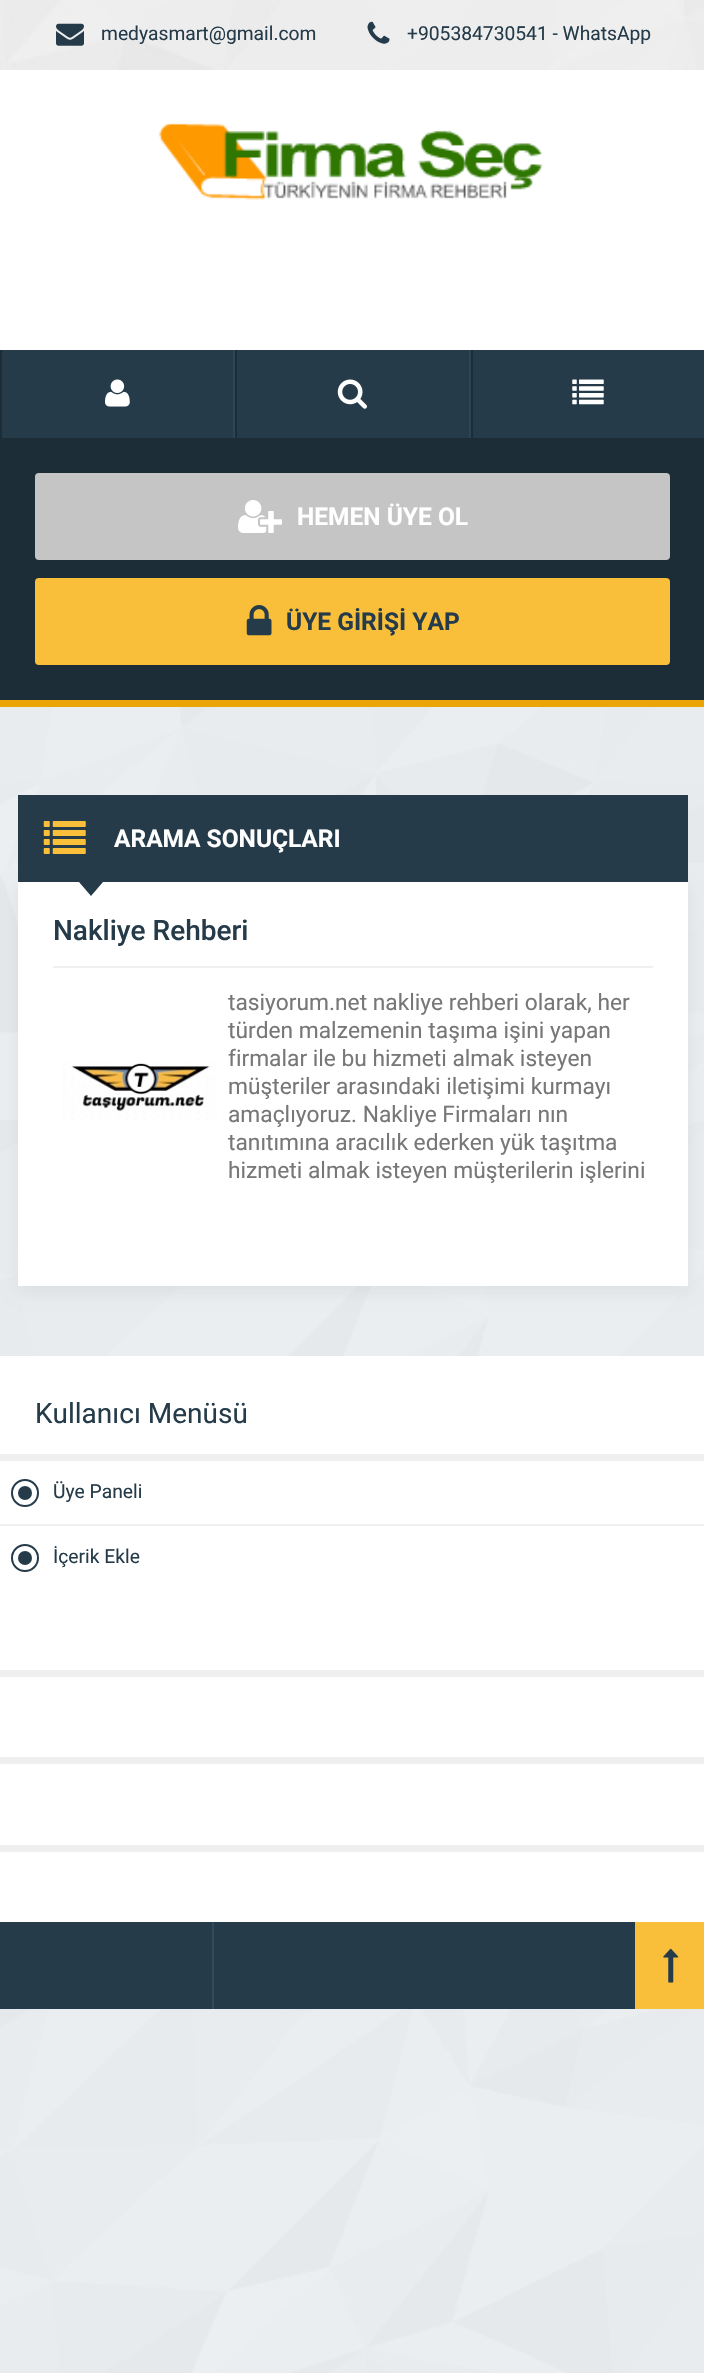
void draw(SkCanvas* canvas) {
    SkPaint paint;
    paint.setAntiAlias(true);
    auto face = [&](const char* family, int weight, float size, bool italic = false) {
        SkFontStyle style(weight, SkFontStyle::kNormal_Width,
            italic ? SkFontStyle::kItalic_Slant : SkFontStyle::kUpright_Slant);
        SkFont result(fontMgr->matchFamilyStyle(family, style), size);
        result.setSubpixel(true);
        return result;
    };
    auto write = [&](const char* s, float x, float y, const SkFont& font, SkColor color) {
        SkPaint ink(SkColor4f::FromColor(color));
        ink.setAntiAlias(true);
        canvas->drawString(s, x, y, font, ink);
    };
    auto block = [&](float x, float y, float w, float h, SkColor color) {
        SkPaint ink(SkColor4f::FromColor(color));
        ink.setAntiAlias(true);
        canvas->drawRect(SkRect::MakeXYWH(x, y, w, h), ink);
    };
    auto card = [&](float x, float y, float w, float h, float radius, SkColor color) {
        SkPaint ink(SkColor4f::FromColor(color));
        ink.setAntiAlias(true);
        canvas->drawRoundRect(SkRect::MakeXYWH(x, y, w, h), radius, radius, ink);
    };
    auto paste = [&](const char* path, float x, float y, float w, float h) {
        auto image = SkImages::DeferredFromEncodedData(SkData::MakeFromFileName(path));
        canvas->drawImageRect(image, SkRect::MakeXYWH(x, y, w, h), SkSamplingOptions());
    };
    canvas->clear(SK_ColorWHITE);
    paste("pic1.png", 0, 707, 704, 1666);
    paste("pic2.png", 0, 0, 704, 70);
    paste("pic3.png", 56, 23, 28, 23);
    auto kFont1 = face("Roboto", 400, 19.25f);
    write("medyasmart@gmail.com", 101, 40, kFont1, SkColorSetRGB(37, 59, 73));
    paste("pic4.png", 367, 21, 23, 23);
    write("+905384730541 - WhatsApp", 407, 40, kFont1, SkColorSetRGB(37, 59, 73));
    paste("pic5.png", 158, 123, 385, 77);
    block(2, 350, 231, 88, SkColorSetRGB(37, 59, 73));
    block(233, 350, 2, 88, SkColorSetRGB(44, 70, 87));
    block(0, 350, 2, 88, SkColorSetRGB(28, 45, 56));
    paste("pic6.png", 105, 379, 25, 28);
    block(237, 350, 232, 88, SkColorSetRGB(37, 59, 73));
    block(469, 350, 2, 88, SkColorSetRGB(44, 70, 87));
    block(235, 350, 2, 88, SkColorSetRGB(28, 45, 56));
    paste("pic7.png", 337, 379, 30, 30);
    block(473, 350, 231, 88, SkColorSetRGB(37, 59, 73));
    block(471, 350, 2, 88, SkColorSetRGB(28, 45, 56));
    paste("pic8.png", 572, 379, 32, 26);
    block(0, 438, 704, 262, SkColorSetRGB(28, 45, 56));
    card(35, 473, 635, 87, 4, SkColorSetRGB(197, 197, 197));
    paste("pic9.png", 238, 500, 44, 33);
    auto kFont2 = face("Roboto", 700, 24.5f);
    write("HEMEN ÜYE OL", 297, 525, kFont2, SK_ColorWHITE);
    card(35, 578, 635, 87, 4, SkColorSetRGB(249, 191, 59));
    paste("pic10.png", 246, 605, 26, 31);
    write("ÜYE GİRİŞİ YAP", 286, 630, kFont2, SkColorSetRGB(37, 59, 73));
    block(0, 700, 704, 7, SkColorSetRGB(235, 165, 7));
    paint.setColor(SkColorSetARGB(15, 0, 0, 0));
    paint.setMaskFilter(SkMaskFilter::MakeBlur(kNormal_SkBlurStyle, 7));
    canvas->drawRect(SkRect::MakeXYWH(18, 887, 670, 405), paint);
    paint.setMaskFilter(nullptr);
    block(18, 795, 670, 87, SkColorSetRGB(37, 59, 73));
    paste("pic11.png", 43, 821, 43, 33);
    write("ARAMA SONUÇLARI", 114, 847, kFont2, SK_ColorWHITE);
    block(18, 882, 670, 404, SK_ColorWHITE);
    paint.setColor(SkColorSetRGB(37, 59, 73));
    canvas->drawPath(SkPathBuilder().moveTo(79, 882).lineTo(103, 882).lineTo(91, 896).close().detach(), paint);
    block(53, 966, 600, 2, SkColorSetRGB(240, 240, 240));
    auto kFont3 = face("Roboto", 500, 28);
    write("Nakliye Rehberi", 53, 940, kFont3, SkColorSetRGB(37, 59, 73));
    paste("pic12.png", 63, 1062, 154, 58);
    auto kFont4 = face("Roboto", 400, 22.75f);
    write("tasiyorum.net nakliye rehberi olarak, her", 228, 1010, kFont4, SkColorSetRGB(119, 119, 119));
    write("türden malzemenin taşıma işini yapan", 228, 1038, kFont4, SkColorSetRGB(119, 119, 119));
    write("firmalar ile bu hizmeti almak isteyen", 228, 1066, kFont4, SkColorSetRGB(119, 119, 119));
    write("müşteriler arasındaki iletişimi kurmayı", 228, 1094, kFont4, SkColorSetRGB(119, 119, 119));
    write("amaçlıyoruz. Nakliye Firmaları nın", 228, 1122, kFont4, SkColorSetRGB(119, 119, 119));
    write("tanıtımına aracılık ederken yük taşıtma", 228, 1150, kFont4, SkColorSetRGB(119, 119, 119));
    write("hizmeti almak isteyen müşterilerin işlerini", 228, 1178, kFont4, SkColorSetRGB(119, 119, 119));
    block(0, 1356, 704, 566, SK_ColorWHITE);
    block(0, 1454, 704, 7, SkColorSetRGB(239, 239, 239));
    auto kFont5 = face("Roboto", 400, 28);
    write("Kullanıcı Menüsü", 35, 1423, kFont5, SkColorSetRGB(37, 59, 73));
    canvas->drawCircle(25, 1493, 7, paint);
    paint.setStyle(SkPaint::kStroke_Style);
    paint.setStrokeWidth(2);
    canvas->drawCircle(25, 1493, 13, paint);
    block(0, 1524, 704, 2, SkColorSetRGB(239, 239, 239));
    write("Üye Paneli", 53, 1498, kFont1, SkColorSetRGB(37, 59, 73));
    paint.setStyle(SkPaint::kFill_Style);
    canvas->drawCircle(25, 1558, 7, paint);
    paint.setStyle(SkPaint::kStroke_Style);
    canvas->drawCircle(25, 1558, 13, paint);
    write("İçerik Ekle", 53, 1563, kFont1, SkColorSetRGB(37, 59, 73));
    block(0, 1670, 704, 7, SkColorSetRGB(239, 239, 239));
    block(0, 1757, 704, 7, SkColorSetRGB(239, 239, 239));
    block(0, 1845, 704, 7, SkColorSetRGB(239, 239, 239));
    block(0, 1922, 635, 87, SkColorSetRGB(37, 59, 73));
    block(212, 1922, 2, 87, SkColorSetRGB(47, 75, 93));
    block(635, 1922, 69, 87, SkColorSetRGB(249, 191, 59));
    paste("pic13.png", 663, 1948, 16, 35);
}
